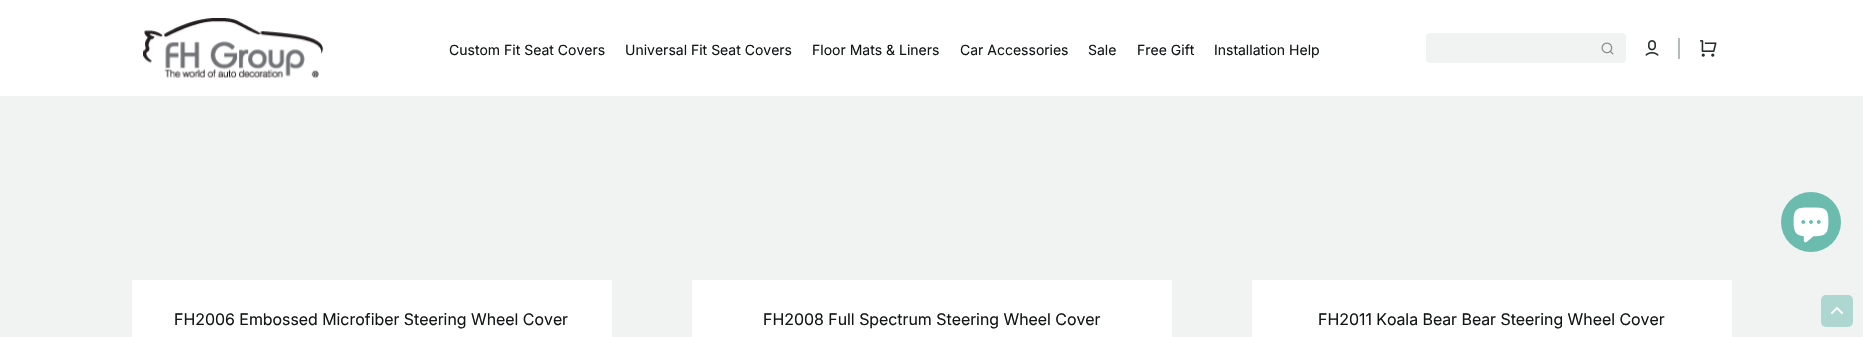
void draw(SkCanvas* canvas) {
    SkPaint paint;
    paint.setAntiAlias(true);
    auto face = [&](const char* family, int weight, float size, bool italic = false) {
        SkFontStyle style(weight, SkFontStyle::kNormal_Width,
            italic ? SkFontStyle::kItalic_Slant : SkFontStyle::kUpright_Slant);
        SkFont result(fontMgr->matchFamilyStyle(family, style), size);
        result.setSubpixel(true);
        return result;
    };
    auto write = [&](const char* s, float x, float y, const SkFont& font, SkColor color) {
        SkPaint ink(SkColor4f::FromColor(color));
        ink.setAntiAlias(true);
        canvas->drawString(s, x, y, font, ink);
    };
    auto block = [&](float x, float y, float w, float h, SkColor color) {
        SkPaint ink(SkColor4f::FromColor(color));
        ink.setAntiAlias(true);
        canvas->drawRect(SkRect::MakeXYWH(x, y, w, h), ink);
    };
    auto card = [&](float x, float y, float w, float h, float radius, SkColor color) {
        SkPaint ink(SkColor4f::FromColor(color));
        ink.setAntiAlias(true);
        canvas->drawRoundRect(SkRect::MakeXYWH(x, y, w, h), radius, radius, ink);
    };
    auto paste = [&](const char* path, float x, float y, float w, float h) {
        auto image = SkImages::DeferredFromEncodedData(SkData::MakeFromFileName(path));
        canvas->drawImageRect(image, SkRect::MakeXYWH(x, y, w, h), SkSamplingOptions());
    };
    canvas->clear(SkColorSetRGB(241, 243, 243));
    block(0, 0, 1863, 96, SK_ColorWHITE);
    paste("pic1.png", 143, 18, 181, 60);
    auto kFont1 = face("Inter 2", 400, 14);
    write("Custom Fit Seat Covers", 449, 55, kFont1, SkColorSetRGB(19, 23, 23));
    write("Universal Fit Seat Covers", 625, 55, kFont1, SkColorSetRGB(19, 23, 23));
    write("Floor Mats & Liners", 812, 55, kFont1, SkColorSetRGB(19, 23, 23));
    write("Car Accessories", 960, 55, kFont1, SkColorSetRGB(19, 23, 23));
    write("Sale", 1088, 55, kFont1, SkColorSetRGB(19, 23, 23));
    write("Free Gift", 1137, 55, kFont1, SkColorSetRGB(19, 23, 23));
    write("Installation Help", 1214, 55, kFont1, SkColorSetRGB(19, 23, 23));
    card(1426, 33, 200, 30, 4, SkColorSetRGB(241, 243, 243));
    paste("pic2.png", 1601, 42, 13, 13);
    paste("pic3.png", 1645, 40, 14, 16);
    block(1678, 38, 2, 21, SkColorSetRGB(181, 188, 187));
    paste("pic4.png", 1700, 40, 17, 17);
    paint.setColor(SkColorSetRGB(107, 187, 174));
    canvas->drawCircle(1811, 222, 30, paint);
    paste("pic5.png", 1793, 207, 36, 36);
    block(132, 280, 480, 57, SK_ColorWHITE);
    auto kFont2 = face("Inter", 400, 16);
    write("FH2006 Embossed Microfiber Steering Wheel Cover", 174, 325, kFont2, SkColorSetRGB(19, 23, 23));
    block(692, 280, 480, 57, SK_ColorWHITE);
    write("FH2008 Full Spectrum Steering Wheel Cover", 763, 325, kFont2, SkColorSetRGB(19, 23, 23));
    block(1252, 280, 480, 57, SK_ColorWHITE);
    write("FH2011 Koala Bear Bear Steering Wheel Cover", 1318, 325, kFont2, SkColorSetRGB(19, 23, 23));
    card(1821, 295, 32, 32, 5, SkColorSetRGB(174, 215, 209));
    paste("pic6.png", 1831, 307, 12, 7);
}
